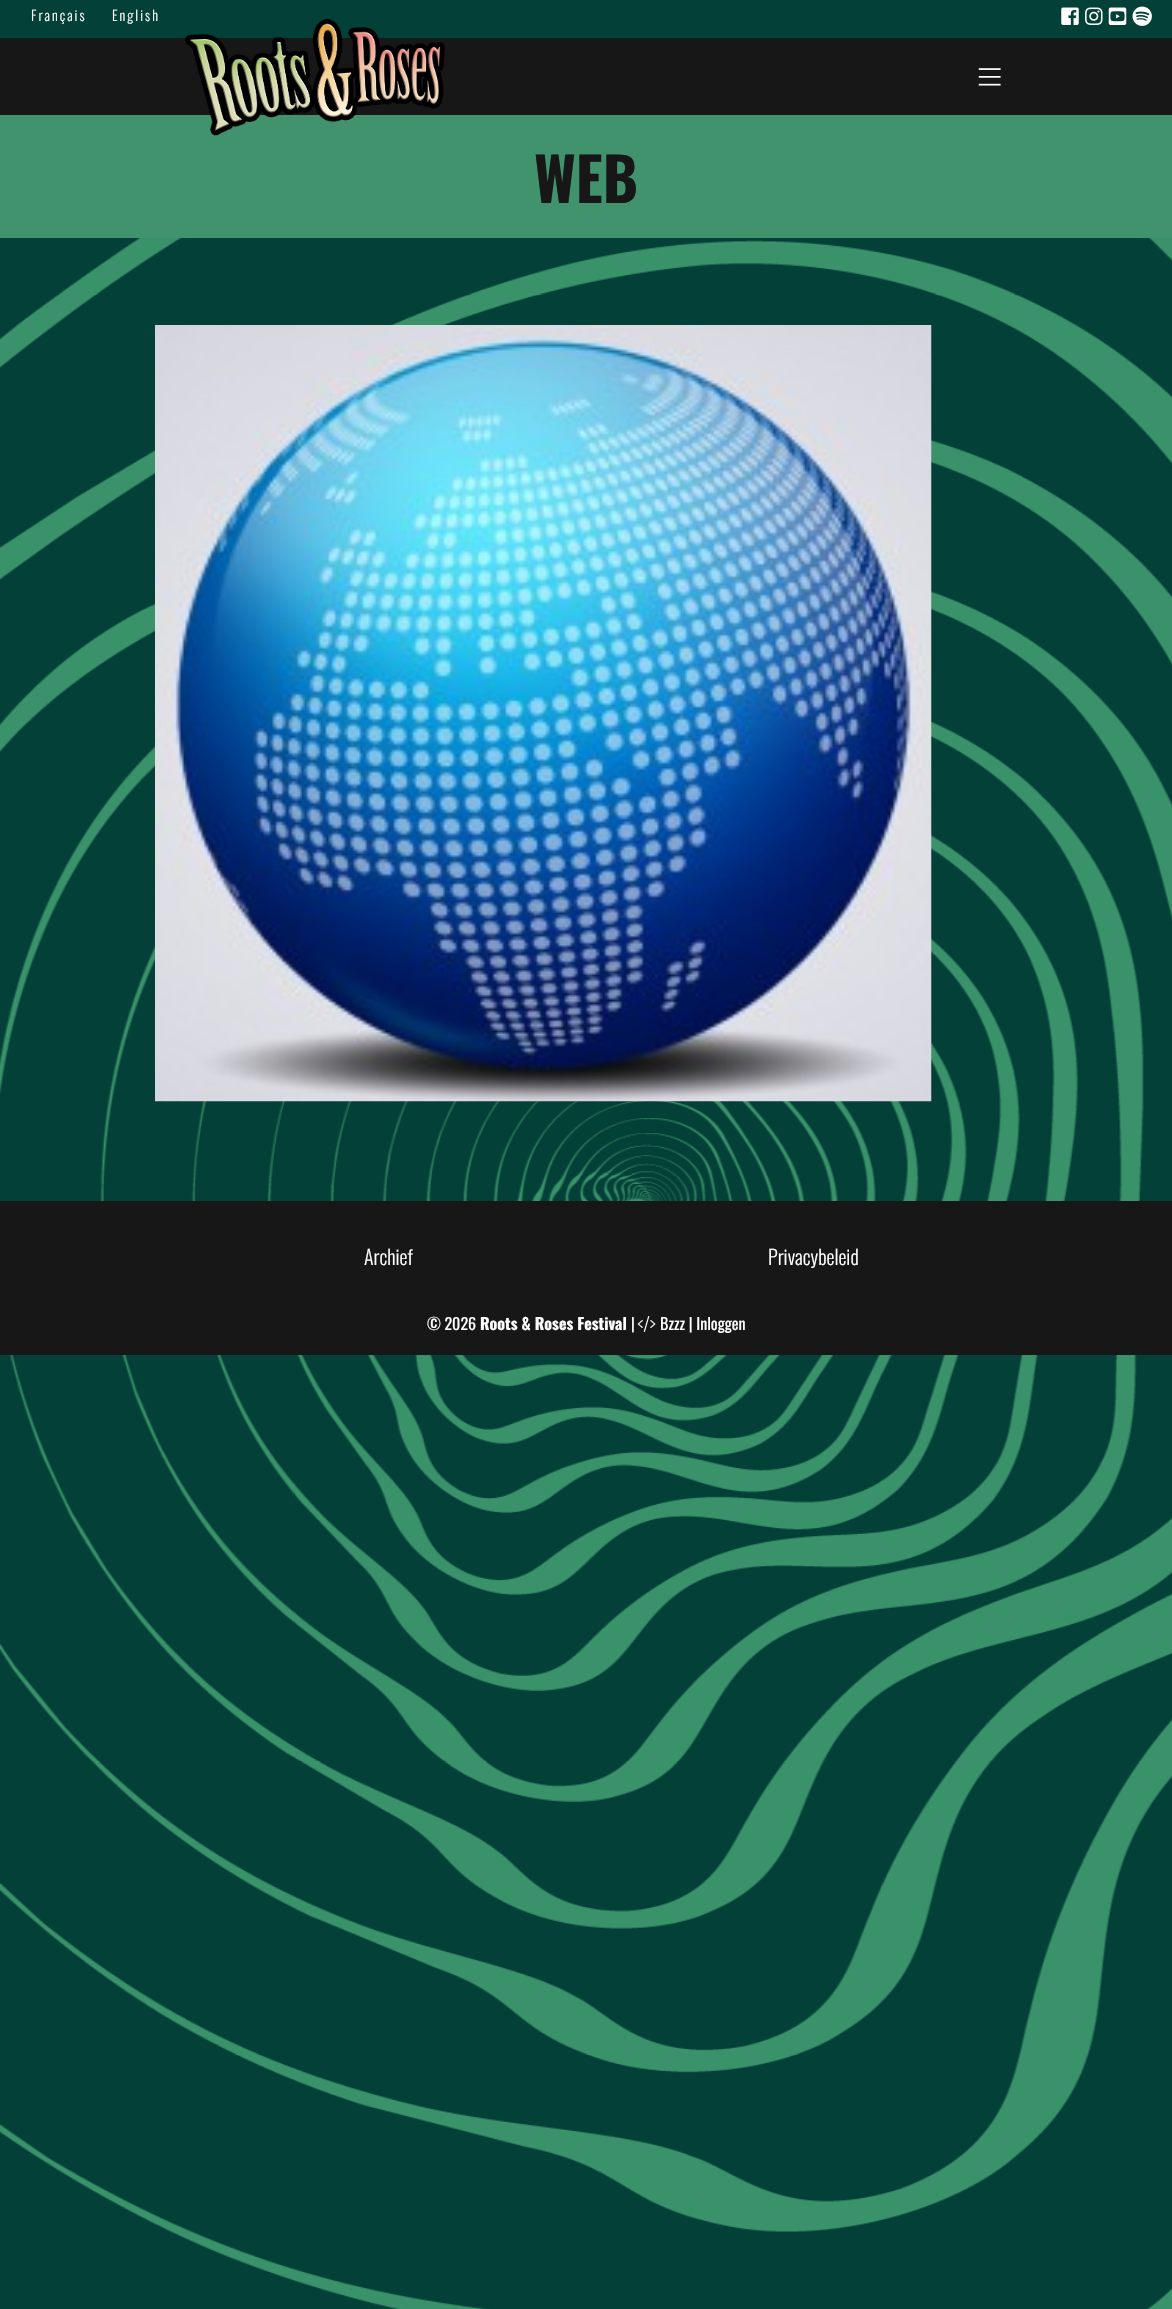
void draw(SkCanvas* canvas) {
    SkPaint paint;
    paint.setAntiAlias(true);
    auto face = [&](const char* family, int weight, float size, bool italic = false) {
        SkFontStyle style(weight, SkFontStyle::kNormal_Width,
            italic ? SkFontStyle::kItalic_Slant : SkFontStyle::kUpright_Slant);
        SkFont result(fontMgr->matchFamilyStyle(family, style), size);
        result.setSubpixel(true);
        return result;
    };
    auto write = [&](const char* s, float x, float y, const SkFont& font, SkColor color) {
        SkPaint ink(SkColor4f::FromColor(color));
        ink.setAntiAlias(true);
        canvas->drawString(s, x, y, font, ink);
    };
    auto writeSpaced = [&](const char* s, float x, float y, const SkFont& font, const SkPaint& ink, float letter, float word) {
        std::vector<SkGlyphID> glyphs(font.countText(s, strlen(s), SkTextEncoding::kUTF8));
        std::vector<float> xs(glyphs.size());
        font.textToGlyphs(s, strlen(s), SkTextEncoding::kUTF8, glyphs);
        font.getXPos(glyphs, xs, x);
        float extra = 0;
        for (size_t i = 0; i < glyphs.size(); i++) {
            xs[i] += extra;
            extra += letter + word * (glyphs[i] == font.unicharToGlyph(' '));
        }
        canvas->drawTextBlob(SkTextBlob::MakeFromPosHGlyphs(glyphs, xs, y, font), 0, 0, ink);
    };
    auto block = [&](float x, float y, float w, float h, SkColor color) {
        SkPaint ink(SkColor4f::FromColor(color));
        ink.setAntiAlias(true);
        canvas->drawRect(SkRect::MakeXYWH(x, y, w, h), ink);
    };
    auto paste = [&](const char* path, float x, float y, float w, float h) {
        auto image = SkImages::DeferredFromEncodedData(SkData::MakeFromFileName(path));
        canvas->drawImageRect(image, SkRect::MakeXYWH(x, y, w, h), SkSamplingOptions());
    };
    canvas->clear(SkColorSetRGB(3, 64, 55));
    paste("pic1.png", 0, 238, 1172, 2071);
    auto kFont1 = face("Oswald", 300, 14);
    paint.setColor(SK_ColorWHITE);
    writeSpaced("Français", 31, 21, kFont1, paint, 2, 0);
    writeSpaced("English", 112, 21, kFont1, paint, 2, 0);
    paste("pic2.png", 1061, 7, 18, 18);
    paste("pic3.png", 1085, 7, 18, 18);
    paste("pic4.png", 1108, 7, 19, 18);
    paste("pic5.png", 1132, 6, 20, 20);
    block(0, 38, 1172, 77, SkColorSetRGB(23, 23, 23));
    block(0, 115, 1172, 123, SkColorSetRGB(65, 147, 110));
    paste("pic6.png", 185, 18, 260, 118);
    paste("pic7.png", 978, 68, 23, 18);
    auto kFont2 = face("Oswald", 700, 60);
    write("WEB", 534, 203, kFont2, SkColorSetRGB(23, 23, 23));
    paste("pic8.png", 155, 325, 777, 777);
    block(0, 1201, 1172, 154, SkColorSetRGB(23, 23, 23));
    auto kFont3 = face("Oswald", 300, 20);
    write("Archief", 364, 1265, kFont3, SK_ColorWHITE);
    write("Privacybeleid", 768, 1265, kFont3, SK_ColorWHITE);
    auto kFont4 = face("Oswald", 400, 16);
    write("© 2026", 427, 1330, kFont4, SK_ColorWHITE);
    auto kFont5 = face("Oswald", 700, 16);
    write("Roots & Roses Festival", 480, 1330, kFont5, SK_ColorWHITE);
    write("|", 631, 1330, kFont4, SK_ColorWHITE);
    paste("pic9.png", 637, 1316, 19, 16);
    write("Bzzz | Inloggen", 660, 1330, kFont4, SK_ColorWHITE);
}
